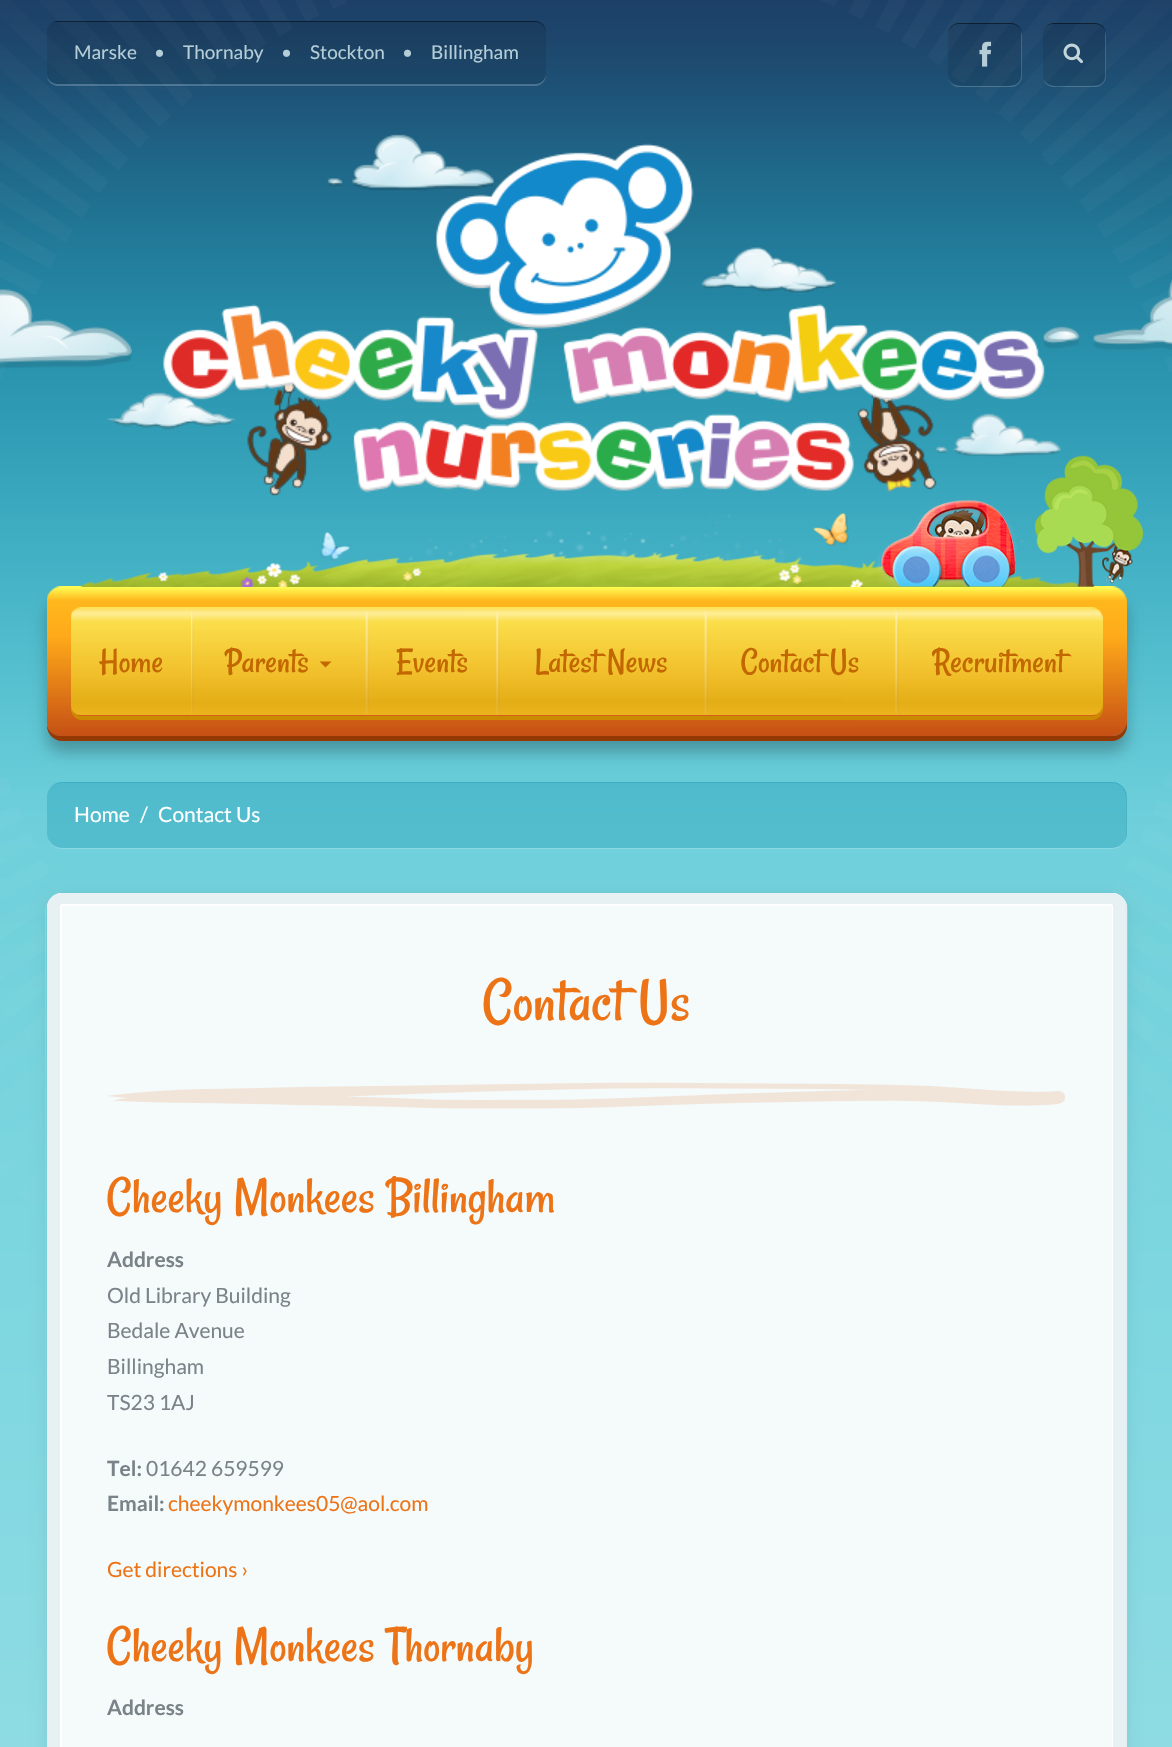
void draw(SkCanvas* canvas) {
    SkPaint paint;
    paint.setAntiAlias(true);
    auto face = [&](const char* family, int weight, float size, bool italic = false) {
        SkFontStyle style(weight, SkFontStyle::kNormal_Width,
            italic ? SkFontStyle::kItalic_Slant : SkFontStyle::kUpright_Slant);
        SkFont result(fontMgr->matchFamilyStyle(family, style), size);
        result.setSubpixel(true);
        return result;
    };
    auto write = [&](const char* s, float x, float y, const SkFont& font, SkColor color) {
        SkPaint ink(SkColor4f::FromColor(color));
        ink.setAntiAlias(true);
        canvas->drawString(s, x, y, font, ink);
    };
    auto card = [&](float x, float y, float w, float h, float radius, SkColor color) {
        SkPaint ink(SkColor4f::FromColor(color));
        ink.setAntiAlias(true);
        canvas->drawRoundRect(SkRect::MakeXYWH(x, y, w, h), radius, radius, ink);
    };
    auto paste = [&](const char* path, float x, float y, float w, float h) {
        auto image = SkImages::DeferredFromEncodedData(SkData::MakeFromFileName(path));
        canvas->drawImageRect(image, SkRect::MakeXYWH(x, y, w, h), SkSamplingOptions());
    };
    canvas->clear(SK_ColorWHITE);
    paste("pic1.png", 0, 0, 1172, 1747);
    paint.setStyle(SkPaint::kStroke_Style);
    paint.setStrokeWidth(228);
    {
        const SkColor colors[] = {SkColorSetARGB(15, 255, 255, 255), SkColorSetARGB(0, 255, 255, 255)};
        const float stops[] = {0.05f, 1};
        paint.setShader(SkGradientShader::MakeRadial({587, 570}, 1021, colors, stops, 2, SkTileMode::kClamp));
        paint.setAlpha(255);
    }
    paint.setPathEffect(SkDashPathEffect::Make({{17.81f, 17.81f}}, 0));
    canvas->drawPath(SkPathBuilder().moveTo(586.5f, -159.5f).cubicTo(989.5f, -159.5f, 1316, 167, 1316, 570).cubicTo(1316, 973, 989.5f, 1299.5f, 586.5f, 1299.5f).cubicTo(183.5f, 1299.5f, -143, 973, -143, 570).cubicTo(-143, 167, 183.5f, -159.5f, 586.5f, -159.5f).close().detach(), paint);
    paint.setPathEffect(nullptr);
    paint.setStyle(SkPaint::kFill_Style);
    paint.setShader(nullptr);
    paint.setColor(SkColorSetARGB(51, 255, 255, 255));
    canvas->drawPath(SkPathBuilder().moveTo(47, 77).cubicTo(48, 82, 53, 86, 58, 86).lineTo(535, 86).cubicTo(541, 86, 546, 81, 546, 75).lineTo(546, 74).cubicTo(546, 79, 541, 84, 536, 84).lineTo(57, 84).cubicTo(53, 84, 49, 81, 47, 77).close().detach(), paint);
    card(47, 21, 499, 63, 11, SkColorSetARGB(26, 0, 0, 0));
    paint.setColor(SkColorSetARGB(128, 0, 0, 0));
    canvas->drawPath(SkPathBuilder().moveTo(57, 22).lineTo(536, 22).cubicTo(541, 22, 546, 27, 546, 33).lineTo(546, 32).cubicTo(546, 26, 541, 21, 535, 21).lineTo(58, 21).cubicTo(55, 21, 52, 23, 50, 25).cubicTo(52, 23, 54, 22, 57, 22).close().detach(), paint);
    auto kFont1 = face("Lato", 400, 19);
    write("Marske", 74, 59, kFont1, SkColorSetRGB(180, 205, 215));
    write("•", 154, 59, kFont1, SkColorSetRGB(180, 205, 215));
    write("Thornaby", 183, 59, kFont1, SkColorSetRGB(180, 205, 215));
    write("•", 281, 59, kFont1, SkColorSetRGB(180, 205, 215));
    write("Stockton", 310, 59, kFont1, SkColorSetRGB(180, 205, 215));
    write("•", 402, 59, kFont1, SkColorSetRGB(180, 205, 215));
    write("Billingham", 431, 59, kFont1, SkColorSetRGB(180, 205, 215));
    paint.setColor(SkColorSetARGB(51, 255, 255, 255));
    canvas->drawPath(SkPathBuilder().moveTo(948, 75).lineTo(948, 76).cubicTo(948, 82, 953, 87, 959, 87).lineTo(1011, 87).cubicTo(1017, 87, 1022, 82, 1022, 76).lineTo(1022, 35).lineTo(1021, 31).lineTo(1021, 77).cubicTo(1019, 87, 1010, 86, 1002, 86).lineTo(967, 86).cubicTo(959, 86, 948, 86, 948, 75).close().detach(), paint);
    card(948, 23, 74, 63, 11, SkColorSetARGB(26, 0, 0, 0));
    paint.setColor(SkColorSetARGB(128, 0, 0, 0));
    canvas->drawPath(SkPathBuilder().moveTo(958, 24).lineTo(1011, 24).cubicTo(1017, 24, 1022, 29, 1022, 34).cubicTo(1022, 28, 1017, 23, 1011, 23).lineTo(959, 23).cubicTo(953, 23, 948, 28, 948, 34).cubicTo(948, 29, 953, 24, 958, 24).close().detach(), paint);
    paste("pic2.png", 979, 41, 13, 26);
    paste("pic3.png", 1063, 43, 20, 21);
    paint.setColor(SkColorSetARGB(51, 255, 255, 255));
    canvas->drawPath(SkPathBuilder().moveTo(1044, 80).cubicTo(1045, 84, 1049, 87, 1054, 87).lineTo(1095, 87).cubicTo(1101, 87, 1106, 82, 1106, 76).lineTo(1106, 35).lineTo(1105, 31).lineTo(1105, 77).cubicTo(1104, 86, 1095, 86, 1088, 86).lineTo(1067, 86).cubicTo(1060, 86, 1048, 88, 1044, 80).close().detach(), paint);
    card(1043, 23, 63, 63, 11, SkColorSetARGB(26, 0, 0, 0));
    paint.setColor(SkColorSetARGB(128, 0, 0, 0));
    canvas->drawPath(SkPathBuilder().moveTo(1053, 24).lineTo(1095, 24).cubicTo(1101, 24, 1106, 29, 1106, 34).cubicTo(1106, 28, 1101, 23, 1095, 23).lineTo(1054, 23).cubicTo(1051, 23, 1048, 24, 1046, 27).cubicTo(1048, 25, 1050, 24, 1053, 24).close().detach(), paint);
    paste("pic15.png", 0, 289, 132, 80);
    paste("pic16.png", 1043, 279, 129, 71);
    paste("pic4.png", 107, 134, 954, 362);
    paint.setColor(SkColorSetARGB(64, 0, 0, 0));
    paint.setMaskFilter(SkMaskFilter::MakeBlur(kNormal_SkBlurStyle, 7.5f));
    canvas->drawRoundRect(SkRect::MakeXYWH(47, 602, 1080, 150), 15, 15, paint);
    paint.setMaskFilter(nullptr);
    paint.setColor(SkColorSetRGB(148, 56, 4));
    canvas->drawPath(SkPathBuilder().moveTo(47, 725).lineTo(47, 726).cubicTo(47, 734, 54, 741, 62, 741).lineTo(1112, 741).cubicTo(1120, 741, 1127, 734, 1127, 726).lineTo(1127, 606).lineTo(1126, 602).lineTo(1126, 722).cubicTo(1126, 730, 1120, 736, 1112, 736).lineTo(62, 736).cubicTo(55, 736, 49, 732, 47, 725).close().detach(), paint);
    paste("pic7.png", 47, 586, 1080, 150);
    paste("pic6.png", 80, 512, 1014, 75);
    paste("pic5.png", 876, 455, 267, 132);
    paint.setColor(SkColorSetRGB(204, 138, 0));
    canvas->drawPath(SkPathBuilder().moveTo(71, 708).lineTo(71, 709).cubicTo(71, 715, 76, 720, 82, 720).lineTo(1092, 720).cubicTo(1098, 720, 1103, 715, 1103, 709).lineTo(1103, 623).lineTo(1102, 620).lineTo(1102, 705).cubicTo(1102, 711, 1098, 716, 1092, 716).lineTo(81, 716).cubicTo(76, 716, 72, 712, 71, 708).close().detach(), paint);
    paste("pic8.png", 71, 607, 1032, 108);
    auto kFont2 = face("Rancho", 400, 36);
    write("Home", 99, 672, kFont2, SkColorSetRGB(195, 104, 0));
    paste("pic9.png", 191, 609, 3, 106);
    write("Parents", 225, 672, kFont2, SkColorSetRGB(195, 104, 0));
    paint.setColor(SkColorSetRGB(195, 104, 0));
    canvas->drawPath(SkPathBuilder().moveTo(319.5f, 661.5f).lineTo(331.5f, 661.5f).lineTo(325.5f, 667.5f).close().detach(), paint);
    paste("pic10.png", 365, 609, 4, 106);
    write("Events", 396, 672, kFont2, SkColorSetRGB(195, 104, 0));
    paste("pic11.png", 496, 609, 4, 106);
    write("Latest News", 535, 672, kFont2, SkColorSetRGB(195, 104, 0));
    paste("pic12.png", 704, 609, 4, 106);
    write("Contact Us", 741, 672, kFont2, SkColorSetRGB(195, 104, 0));
    paste("pic13.png", 895, 609, 4, 106);
    write("Recruitment", 933, 672, kFont2, SkColorSetRGB(195, 104, 0));
    paint.setColor(SkColorSetARGB(46, 255, 255, 255));
    canvas->drawPath(SkPathBuilder().moveTo(48, 838).cubicTo(49, 844, 55, 849, 62, 849).lineTo(1112, 849).cubicTo(1120, 849, 1127, 842, 1127, 834).lineTo(1127, 798).cubicTo(1127, 796, 1127, 794, 1126, 793).lineTo(1126, 796).lineTo(1126, 832).cubicTo(1126, 841, 1120, 848, 1112, 848).lineTo(62, 848).cubicTo(55, 848, 50, 844, 48, 838).close().detach(), paint);
    card(47, 782, 1080, 66, 15, SkColorSetARGB(102, 39, 159, 184));
    paint.setColor(SkColorSetARGB(97, 38, 157, 182));
    canvas->drawPath(SkPathBuilder().moveTo(62, 783).lineTo(1112, 783).cubicTo(1120, 783, 1126, 790, 1126, 798).lineTo(1126, 834).cubicTo(1126, 837, 1125, 840, 1123, 843).cubicTo(1126, 840, 1127, 837, 1127, 833).lineTo(1127, 797).cubicTo(1127, 789, 1120, 782, 1112, 782).lineTo(62, 782).cubicTo(57, 782, 52, 785, 50, 789).cubicTo(52, 785, 57, 783, 62, 783).close().detach(), paint);
    auto kFont3 = face("Lato", 400, 21);
    write("Home", 74, 822, kFont3, SK_ColorWHITE);
    write("/", 140, 822, kFont3, SK_ColorWHITE);
    write("Contact Us", 158, 822, kFont3, SK_ColorWHITE);
    paint.setColor(SkColorSetRGB(184, 202, 207));
    canvas->drawPath(SkPathBuilder().moveTo(50, 898).cubicTo(47, 901, 45, 906, 45, 910).lineTo(45, 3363).cubicTo(45, 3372, 53, 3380, 62, 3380).lineTo(1111, 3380).cubicTo(1120, 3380, 1128, 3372, 1128, 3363).lineTo(1128, 910).cubicTo(1128, 906, 1126, 901, 1123, 898).cubicTo(1125, 901, 1126, 904, 1126, 908).lineTo(1126, 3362).cubicTo(1126, 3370, 1120, 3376, 1112, 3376).lineTo(62, 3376).cubicTo(53, 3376, 46, 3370, 46, 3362).lineTo(46, 908).cubicTo(46, 904, 48, 901, 50, 898).close().detach(), paint);
    paint.setColor(SkColorSetARGB(20, 0, 0, 0));
    paint.setMaskFilter(SkMaskFilter::MakeBlur(kNormal_SkBlurStyle, 7.5f));
    canvas->drawRoundRect(SkRect::MakeXYWH(47, 896, 1080, 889), 15, 15, paint);
    paint.setMaskFilter(nullptr);
    card(47, 893, 1080, 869, 15, SkColorSetRGB(245, 250, 251));
    paint.setColor(SK_ColorWHITE);
    canvas->drawPath(SkPathBuilder(SkPathFillType::kEvenOdd).moveTo(62, 893).cubicTo(54, 893, 47, 900, 47, 908).lineTo(47, 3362).cubicTo(47, 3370, 54, 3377, 62, 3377).lineTo(1112, 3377).cubicTo(1120, 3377, 1127, 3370, 1127, 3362).lineTo(1127, 908).cubicTo(1127, 900, 1120, 893, 1112, 893).close().moveTo(62, 906).lineTo(62, 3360).lineTo(1112, 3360).lineTo(1112, 906).close().detach(), paint);
    paint.setColor(SkColorSetRGB(231, 241, 244));
    canvas->drawPath(SkPathBuilder(SkPathFillType::kEvenOdd).moveTo(62, 893).cubicTo(54, 893, 47, 900, 47, 908).lineTo(47, 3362).cubicTo(47, 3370, 54, 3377, 62, 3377).lineTo(1112, 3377).cubicTo(1120, 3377, 1127, 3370, 1127, 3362).lineTo(1127, 908).cubicTo(1127, 900, 1120, 893, 1112, 893).close().moveTo(62, 904).cubicTo(61, 904, 60, 905, 60, 906).lineTo(60, 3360).cubicTo(60, 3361, 61, 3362, 62, 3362).lineTo(1112, 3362).lineTo(1113, 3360).lineTo(1113, 906).lineTo(1112, 904).close().detach(), paint);
    paint.setColor(SkColorSetRGB(225, 238, 242));
    canvas->drawPath(SkPathBuilder().moveTo(50, 899).cubicTo(48, 901, 47, 905, 47, 908).lineTo(47, 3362).cubicTo(47, 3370, 54, 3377, 62, 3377).lineTo(1112, 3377).cubicTo(1120, 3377, 1127, 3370, 1127, 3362).lineTo(1127, 908).cubicTo(1127, 903, 1124, 898, 1120, 895).cubicTo(1123, 898, 1125, 902, 1125, 906).lineTo(1125, 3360).cubicTo(1125, 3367, 1119, 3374, 1112, 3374).lineTo(62, 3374).cubicTo(54, 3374, 48, 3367, 48, 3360).lineTo(48, 906).cubicTo(48, 904, 49, 901, 50, 899).close().detach(), paint);
    auto kFont4 = face("Rancho", 400, 63);
    write("Contact Us", 483, 1020, kFont4, SkColorSetRGB(236, 116, 23));
    paste("pic14.png", 107, 1082, 958, 27);
    auto kFont5 = face("Rancho", 400, 52.5f);
    write("Cheeky Monkees Billingham", 107, 1212, kFont5, SkColorSetRGB(236, 116, 23));
    auto kFont6 = face("Lato", 700, 21);
    write("Address", 107, 1267, kFont6, SkColorSetRGB(121, 131, 136));
    write("Old Library Building", 107, 1303, kFont3, SkColorSetRGB(121, 131, 136));
    write("Bedale Avenue", 107, 1338, kFont3, SkColorSetRGB(121, 131, 136));
    write("Billingham", 107, 1374, kFont3, SkColorSetRGB(121, 131, 136));
    write("TS23 1AJ", 107, 1410, kFont3, SkColorSetRGB(121, 131, 136));
    write("Tel:", 107, 1476, kFont6, SkColorSetRGB(121, 131, 136));
    write("01642 659599", 146, 1476, kFont3, SkColorSetRGB(121, 131, 136));
    write("Email:", 107, 1511, kFont6, SkColorSetRGB(121, 131, 136));
    write("cheekymonkees05@aol.com", 168, 1511, kFont3, SkColorSetRGB(236, 116, 23));
    write("Get directions ›", 107, 1577, kFont3, SkColorSetRGB(236, 116, 23));
    write("Cheeky Monkees Thornaby", 107, 1661, kFont5, SkColorSetRGB(236, 116, 23));
    write("Address", 107, 1715, kFont6, SkColorSetRGB(121, 131, 136));
}
